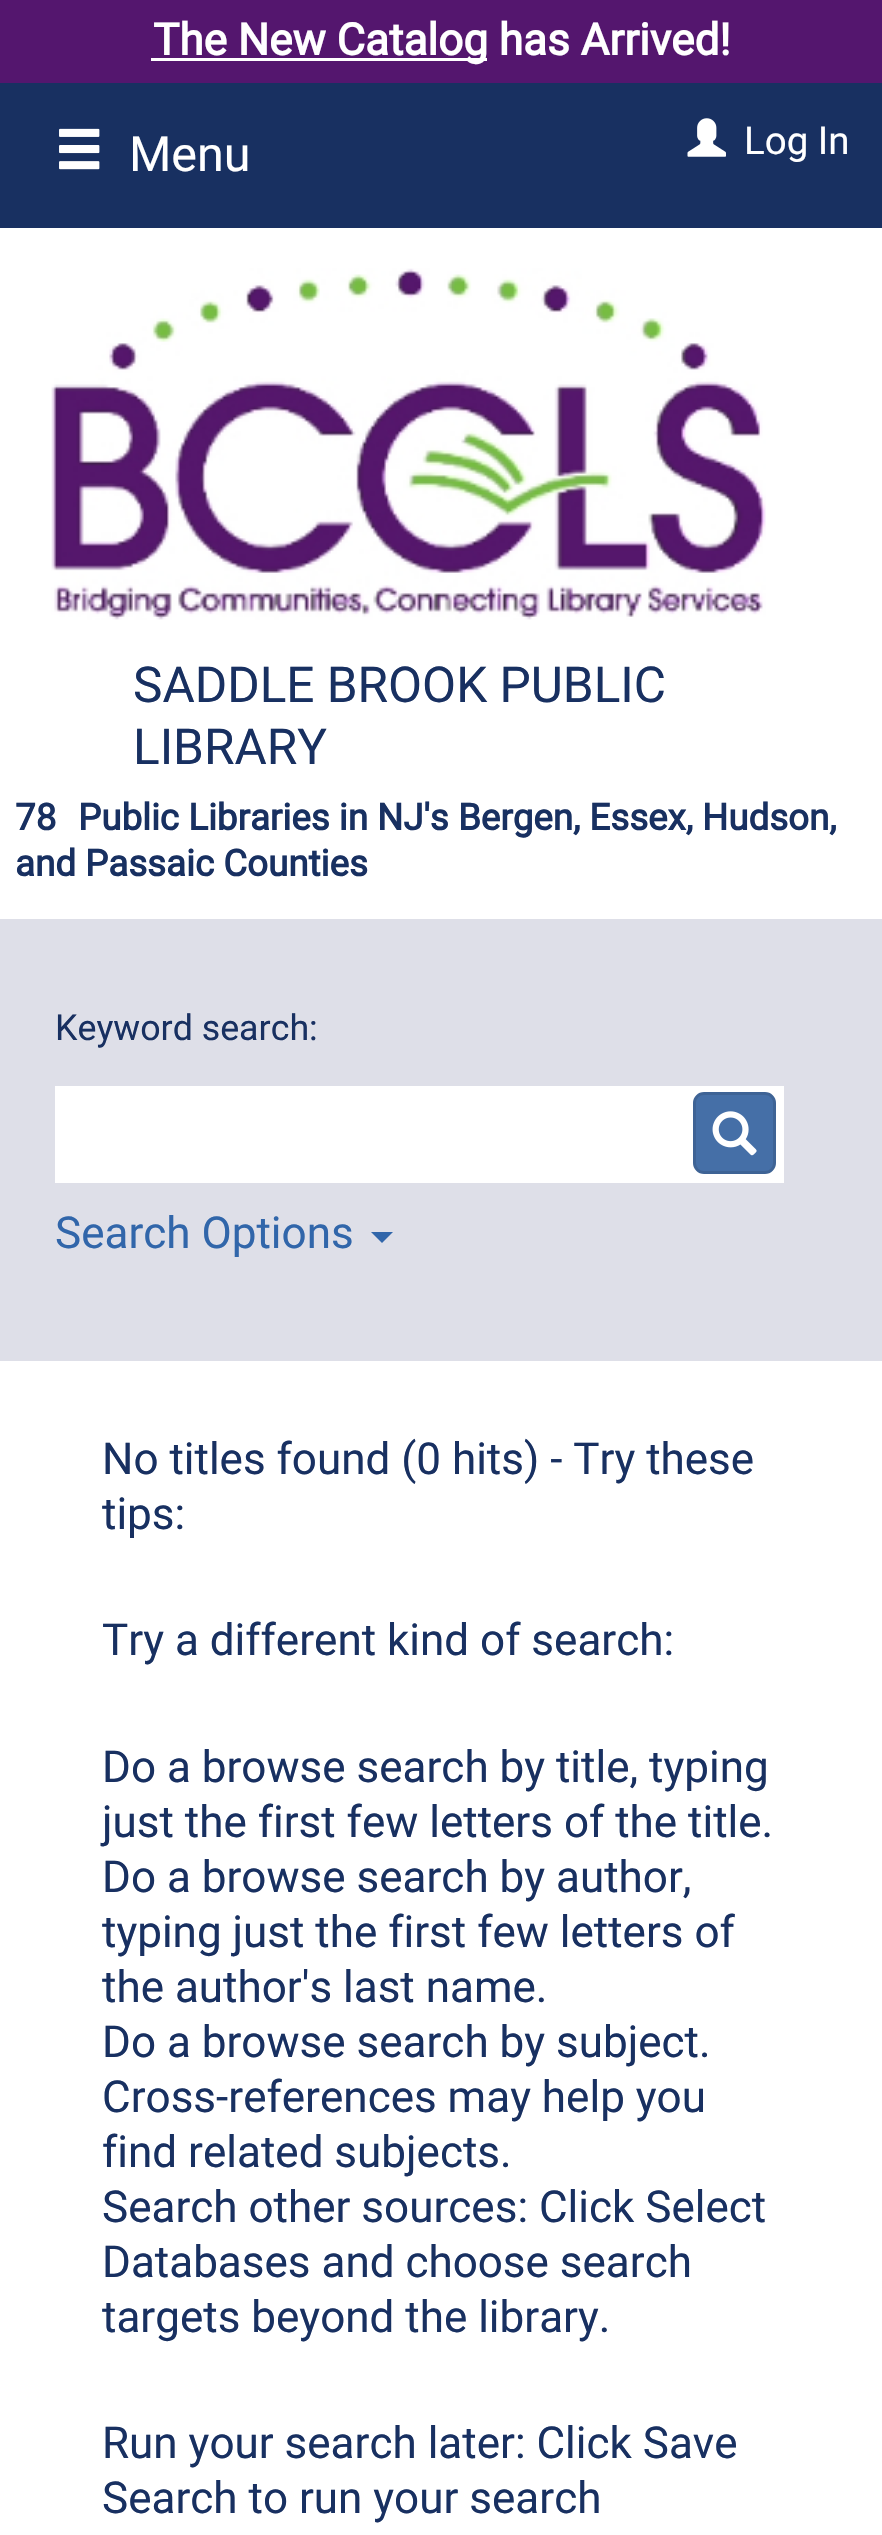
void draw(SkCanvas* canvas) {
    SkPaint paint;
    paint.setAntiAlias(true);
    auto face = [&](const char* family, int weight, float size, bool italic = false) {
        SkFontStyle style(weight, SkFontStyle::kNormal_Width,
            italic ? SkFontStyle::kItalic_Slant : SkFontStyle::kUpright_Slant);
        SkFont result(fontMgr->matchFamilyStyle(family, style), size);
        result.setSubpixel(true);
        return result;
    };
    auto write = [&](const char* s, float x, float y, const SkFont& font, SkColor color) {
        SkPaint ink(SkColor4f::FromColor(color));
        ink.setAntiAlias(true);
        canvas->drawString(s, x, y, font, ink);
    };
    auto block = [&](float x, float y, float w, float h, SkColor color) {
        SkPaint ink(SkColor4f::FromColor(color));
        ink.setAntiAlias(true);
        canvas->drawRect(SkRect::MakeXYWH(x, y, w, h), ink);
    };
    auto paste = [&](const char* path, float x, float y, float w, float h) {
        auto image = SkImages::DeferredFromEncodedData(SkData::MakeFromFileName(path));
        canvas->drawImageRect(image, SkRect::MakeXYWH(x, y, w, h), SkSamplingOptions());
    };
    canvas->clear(SkColorSetRGB(84, 22, 110));
    block(151, 58, 336, 3, SK_ColorWHITE);
    auto kFont1 = face("Roboto", 700, 44);
    write("The New Catalog has Arrived!", 153, 55, kFont1, SK_ColorWHITE);
    block(0, 83, 882, 145, SkColorSetRGB(24, 48, 97));
    paste("pic1.png", 59, 128, 41, 42);
    auto kFont2 = face("Roboto", 400, 48.5f);
    write("Menu", 129, 171, kFont2, SK_ColorWHITE);
    paste("pic2.png", 687, 118, 39, 39);
    auto kFont3 = face("Roboto", 400, 38.5f);
    write("Log In", 744, 154, kFont3, SK_ColorWHITE);
    block(0, 228, 882, 691, SK_ColorWHITE);
    paste("pic3.png", 51, 268, 715, 352);
    auto kFont4 = face("Roboto", 400, 49.5f);
    write("SADDLE BROOK PUBLIC", 133, 702, kFont4, SkColorSetRGB(24, 48, 97));
    write("LIBRARY", 133, 764, kFont4, SkColorSetRGB(24, 48, 97));
    auto kFont5 = face("Roboto", 700, 36.7f);
    write("78", 15, 830, kFont5, SkColorSetRGB(24, 48, 97));
    write("Public Libraries in NJ's Bergen, Essex, Hudson,", 78, 830, kFont5, SkColorSetRGB(24, 48, 97));
    write("and Passaic Counties", 15, 876, kFont5, SkColorSetRGB(24, 48, 97));
    block(0, 1361, 882, 1174, SK_ColorWHITE);
    block(0, 919, 882, 442, SkColorSetRGB(222, 223, 232));
    auto kFont6 = face("Roboto", 400, 35.75f);
    write("Keyword search:", 55, 1040, kFont6, SkColorSetRGB(24, 48, 97));
    block(55, 1086, 729, 97, SK_ColorWHITE);
    paint.setColor(SkColorSetRGB(69, 111, 167));
    canvas->drawRoundRect(SkRect::MakeXYWH(694.5f, 1093.5f, 80, 79), 9.5f, 9.5f, paint);
    paint.setStyle(SkPaint::kStroke_Style);
    paint.setStrokeWidth(3);
    paint.setColor(SkColorSetRGB(62, 99, 149));
    canvas->drawRoundRect(SkRect::MakeXYWH(694.5f, 1093.5f, 80, 79), 9.5f, 9.5f, paint);
    paste("pic4.png", 712, 1111, 45, 45);
    auto kFont7 = face("Roboto", 400, 44);
    write("Search Options", 55, 1248, kFont7, SkColorSetRGB(49, 102, 170));
    paint.setStyle(SkPaint::kFill_Style);
    paint.setColor(SkColorSetRGB(49, 102, 170));
    canvas->drawPath(SkPathBuilder().moveTo(371, 1232).lineTo(393, 1232).lineTo(382, 1243).close().detach(), paint);
    write("No titles found (0 hits) - Try these", 102, 1474, kFont7, SkColorSetRGB(24, 48, 97));
    write("tips:", 102, 1529, kFont7, SkColorSetRGB(24, 48, 97));
    write("Try a different kind of search:", 102, 1655, kFont7, SkColorSetRGB(24, 48, 97));
    write("Do a browse search by title, typing", 102, 1782, kFont7, SkColorSetRGB(24, 48, 97));
    write("just the first few letters of the title.", 102, 1837, kFont7, SkColorSetRGB(24, 48, 97));
    write("Do a browse search by author,", 102, 1892, kFont7, SkColorSetRGB(24, 48, 97));
    write("typing just the first few letters of", 102, 1947, kFont7, SkColorSetRGB(24, 48, 97));
    write("the author's last name.", 102, 2002, kFont7, SkColorSetRGB(24, 48, 97));
    write("Do a browse search by subject.", 102, 2057, kFont7, SkColorSetRGB(24, 48, 97));
    write("Cross-references may help you", 102, 2112, kFont7, SkColorSetRGB(24, 48, 97));
    write("find related subjects.", 102, 2167, kFont7, SkColorSetRGB(24, 48, 97));
    write("Search other sources: Click Select", 102, 2222, kFont7, SkColorSetRGB(24, 48, 97));
    write("Databases and choose search", 102, 2277, kFont7, SkColorSetRGB(24, 48, 97));
    write("targets beyond the library.", 102, 2332, kFont7, SkColorSetRGB(24, 48, 97));
    write("Run your search later: Click Save", 102, 2458, kFont7, SkColorSetRGB(24, 48, 97));
    write("Search to run your search", 102, 2513, kFont7, SkColorSetRGB(24, 48, 97));
}
